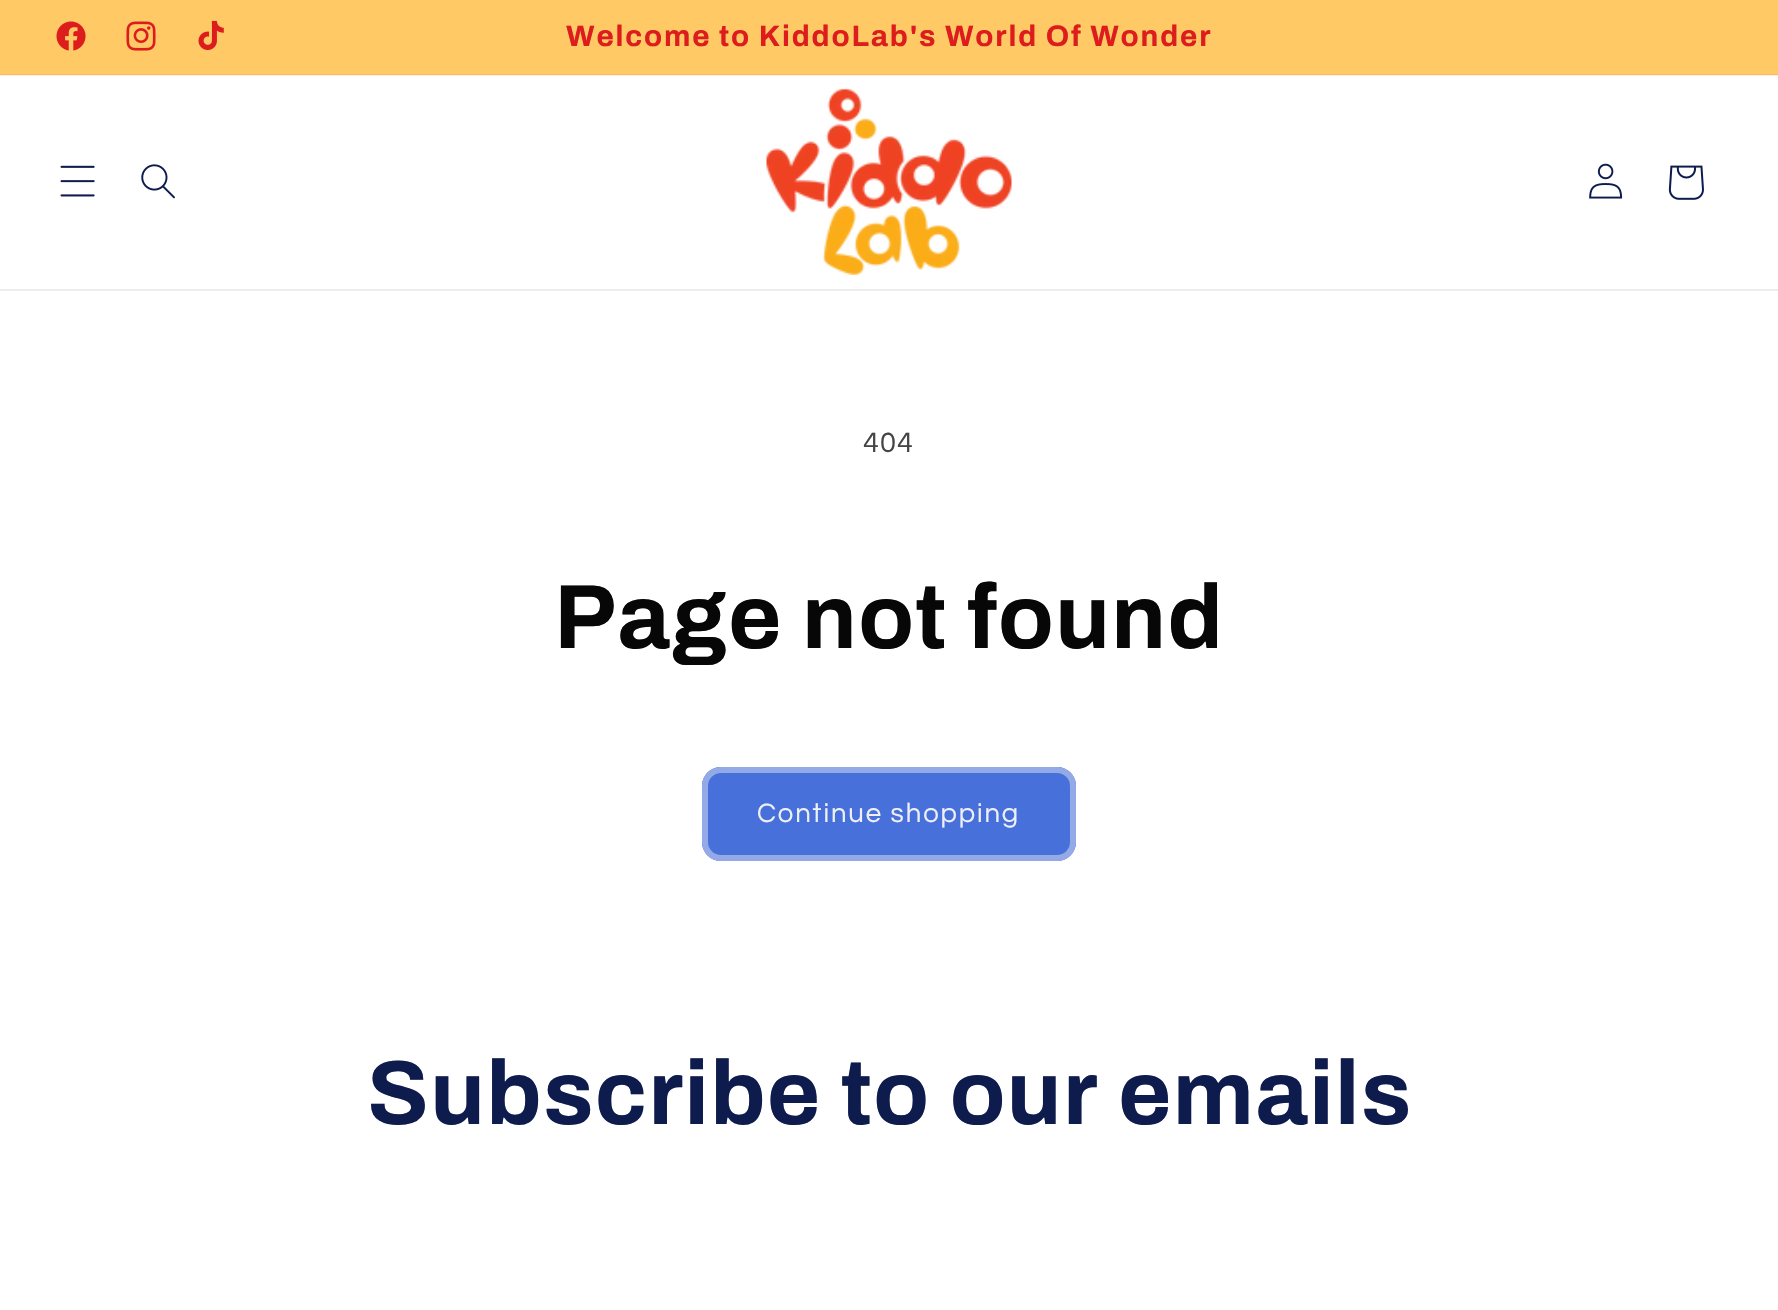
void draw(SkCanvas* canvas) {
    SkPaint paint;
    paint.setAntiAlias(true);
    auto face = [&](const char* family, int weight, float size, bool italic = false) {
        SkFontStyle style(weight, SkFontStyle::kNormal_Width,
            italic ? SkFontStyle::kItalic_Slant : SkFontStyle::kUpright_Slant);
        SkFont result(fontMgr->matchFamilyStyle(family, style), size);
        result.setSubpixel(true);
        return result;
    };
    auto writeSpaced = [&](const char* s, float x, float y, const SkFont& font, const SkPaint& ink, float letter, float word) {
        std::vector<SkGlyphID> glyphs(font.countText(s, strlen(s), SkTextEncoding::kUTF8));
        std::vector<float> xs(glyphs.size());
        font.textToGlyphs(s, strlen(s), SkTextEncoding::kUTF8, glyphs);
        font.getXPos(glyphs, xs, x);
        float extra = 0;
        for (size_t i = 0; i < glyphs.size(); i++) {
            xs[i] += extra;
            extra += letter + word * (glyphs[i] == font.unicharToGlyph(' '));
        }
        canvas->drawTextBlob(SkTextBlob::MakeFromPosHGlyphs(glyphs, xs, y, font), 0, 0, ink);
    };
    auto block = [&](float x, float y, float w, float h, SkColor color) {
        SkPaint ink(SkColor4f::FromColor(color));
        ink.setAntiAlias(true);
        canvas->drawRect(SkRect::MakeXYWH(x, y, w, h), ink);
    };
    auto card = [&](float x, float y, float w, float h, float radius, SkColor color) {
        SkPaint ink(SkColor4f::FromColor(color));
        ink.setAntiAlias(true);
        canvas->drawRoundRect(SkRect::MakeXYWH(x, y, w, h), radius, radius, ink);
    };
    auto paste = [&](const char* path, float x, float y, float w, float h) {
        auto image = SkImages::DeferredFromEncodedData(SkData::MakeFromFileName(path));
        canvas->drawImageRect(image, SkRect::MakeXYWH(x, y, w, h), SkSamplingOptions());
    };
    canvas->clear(SK_ColorWHITE);
    block(0, 75, 1778, 1, SkColorSetRGB(252, 237, 237));
    block(0, 0, 1778, 74, SkColorSetRGB(255, 201, 101));
    block(0, 74, 1778, 1, SkColorSetRGB(252, 187, 95));
    paste("pic1.png", 56, 21, 30, 30);
    paste("pic2.png", 126, 21, 30, 30);
    paste("pic3.png", 198, 20, 26, 30);
    auto kFont1 = face("Archivo", 700, 29.6f);
    paint.setColor(SkColorSetRGB(221, 29, 29));
    writeSpaced("Welcome to KiddoLab's World Of Wonder", 566, 46, kFont1, paint, 1.85f, 0);
    block(0, 289, 1778, 2, SkColorSetRGB(236, 237, 241));
    paste("pic4.png", 60, 165, 35, 32);
    paste("pic5.png", 141, 164, 34, 35);
    paste("pic6.png", 766, 88, 246, 187);
    paste("pic7.png", 1589, 163, 34, 36);
    paste("pic8.png", 1668, 165, 36, 35);
    auto kFont2 = face("Questrial", 400, 29);
    paint.setColor(SkColorSetRGB(69, 69, 70));
    writeSpaced("404", 863, 452, kFont2, paint, 1, 0);
    auto kFont3 = face("Archivo", 700, 91);
    paint.setColor(SkColorSetRGB(7, 7, 8));
    writeSpaced("Page not found", 554, 648, kFont3, paint, 1.4f, 0);
    card(702, 767, 374, 94, 19, SkColorSetRGB(71, 112, 219));
    paint.setStyle(SkPaint::kStroke_Style);
    paint.setStrokeWidth(5);
    paint.setColor(SkColorSetRGB(71, 112, 219));
    canvas->drawRoundRect(SkRect::MakeXYWH(704.5f, 769.5f, 369, 89), 16.5f, 16.5f, paint);
    paint.setStrokeWidth(6);
    paint.setColor(SkColorSetARGB(115, 239, 240, 245));
    canvas->drawRoundRect(SkRect::MakeXYWH(705, 770, 368, 88), 16, 16, paint);
    auto kFont4 = face("Questrial", 400, 27.5f);
    paint.setStyle(SkPaint::kFill_Style);
    paint.setColor(SkColorSetRGB(239, 240, 245));
    writeSpaced("Continue shopping", 757, 822, kFont4, paint, 1.85f, 0);
    paint.setColor(SkColorSetRGB(14, 27, 77));
    writeSpaced("Subscribe to our emails", 367, 1124, kFont3, paint, 1.4f, 0);
}
